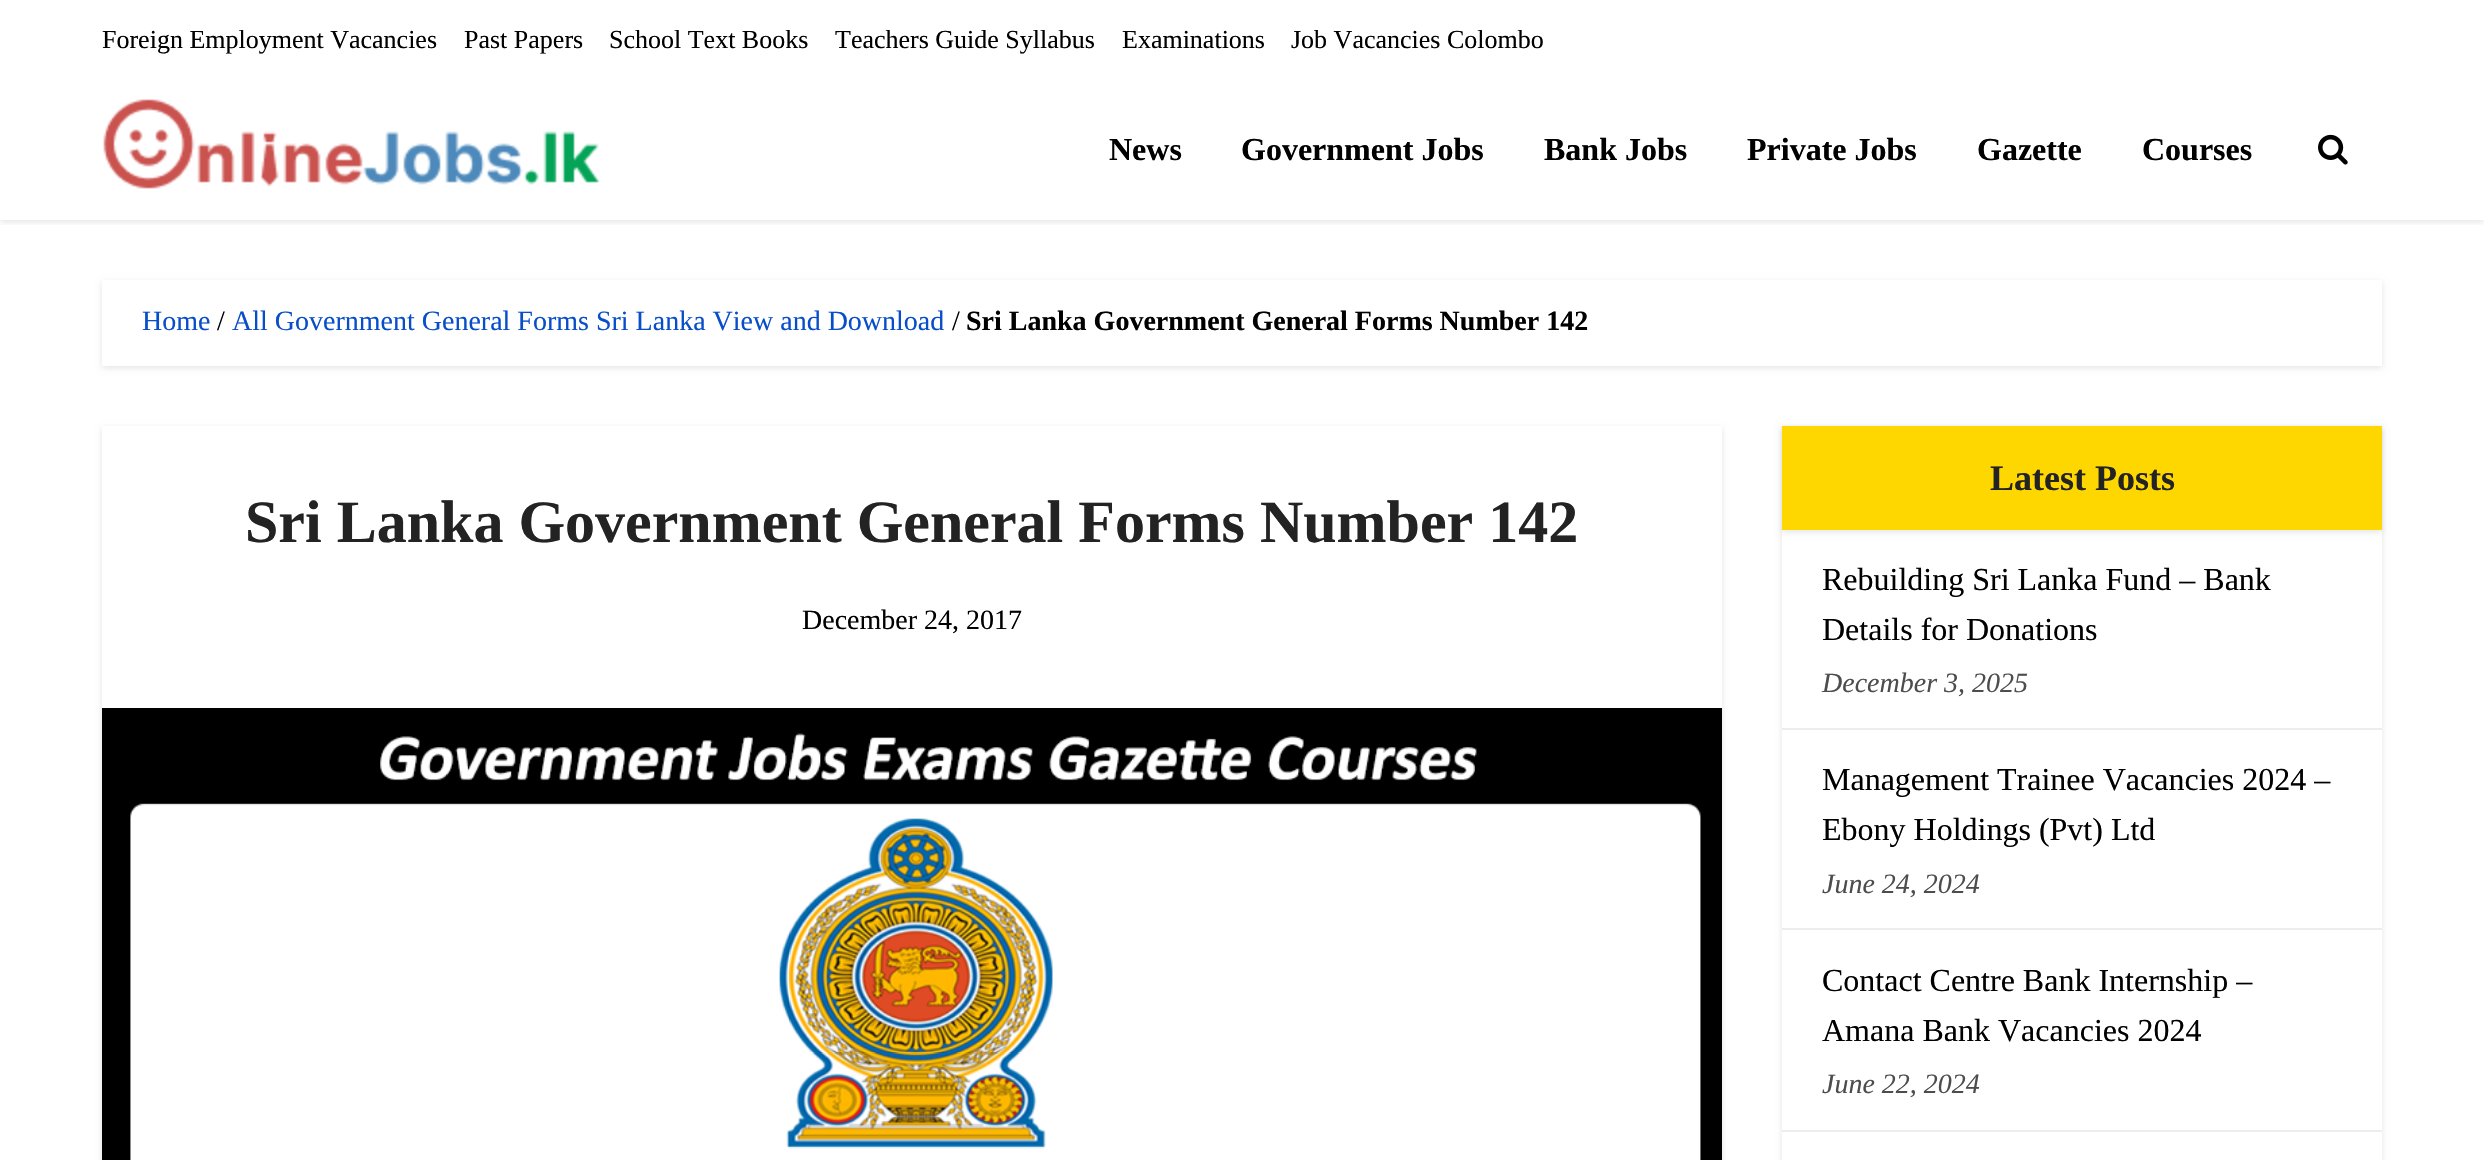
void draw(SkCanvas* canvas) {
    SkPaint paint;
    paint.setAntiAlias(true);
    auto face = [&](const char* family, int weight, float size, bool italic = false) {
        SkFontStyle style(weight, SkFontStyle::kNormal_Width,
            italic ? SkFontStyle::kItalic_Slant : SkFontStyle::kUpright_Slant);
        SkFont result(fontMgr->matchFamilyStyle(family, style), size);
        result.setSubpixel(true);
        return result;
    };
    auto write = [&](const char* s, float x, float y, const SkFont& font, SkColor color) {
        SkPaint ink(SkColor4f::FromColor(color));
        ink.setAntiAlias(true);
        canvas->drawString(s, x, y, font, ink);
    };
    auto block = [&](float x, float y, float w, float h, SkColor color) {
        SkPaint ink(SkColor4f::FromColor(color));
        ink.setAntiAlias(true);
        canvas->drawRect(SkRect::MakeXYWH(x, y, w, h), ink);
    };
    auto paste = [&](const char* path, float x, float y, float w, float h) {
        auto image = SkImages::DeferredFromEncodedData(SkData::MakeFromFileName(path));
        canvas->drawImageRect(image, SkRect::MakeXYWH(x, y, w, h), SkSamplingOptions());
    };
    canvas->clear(SK_ColorWHITE);
    canvas->save();
    canvas->clipRect(SkRect::MakeXYWH(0, 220, 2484, 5));
    paint.setColor(SkColorSetARGB(26, 0, 0, 0));
    paint.setMaskFilter(SkMaskFilter::MakeBlur(kNormal_SkBlurStyle, 3));
    canvas->drawRect(SkRect::MakeXYWH(0, 2, 2484, 220), paint);
    paint.setMaskFilter(nullptr);
    canvas->restore();
    auto kFont1 = face("Liberation Serif", 400, 26);
    write("Foreign Employment Vacancies", 102, 48, kFont1, SK_ColorBLACK);
    write("Past Papers", 464, 48, kFont1, SK_ColorBLACK);
    write("School Text Books", 609, 48, kFont1, SK_ColorBLACK);
    write("Teachers Guide Syllabus", 835, 48, kFont1, SK_ColorBLACK);
    write("Examinations", 1122, 48, kFont1, SK_ColorBLACK);
    write("Job Vacancies Colombo", 1291, 48, kFont1, SK_ColorBLACK);
    paste("pic1.png", 103, 99, 497, 90);
    auto kFont2 = face("Liberation Serif", 700, 32);
    write("News", 1109, 160, kFont2, SK_ColorBLACK);
    write("Government Jobs", 1241, 160, kFont2, SK_ColorBLACK);
    write("Bank Jobs", 1544, 160, kFont2, SK_ColorBLACK);
    write("Private Jobs", 1747, 160, kFont2, SK_ColorBLACK);
    write("Gazette", 1977, 160, kFont2, SK_ColorBLACK);
    write("Courses", 2142, 160, kFont2, SK_ColorBLACK);
    paste("pic2.png", 2318, 134, 30, 31);
    canvas->save();
    canvas->clipPath(SkPathBuilder(SkPathFillType::kEvenOdd).moveTo(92, 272).lineTo(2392, 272).lineTo(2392, 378).lineTo(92, 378).close().moveTo(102, 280).lineTo(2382, 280).lineTo(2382, 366).lineTo(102, 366).close().detach(), true);
    paint.setMaskFilter(SkMaskFilter::MakeBlur(kNormal_SkBlurStyle, 3));
    canvas->drawRect(SkRect::MakeXYWH(102, 282, 2280, 86), paint);
    paint.setMaskFilter(nullptr);
    canvas->restore();
    auto kFont3 = face("Liberation Serif", 400, 28);
    write("Home", 142, 330, kFont3, SkColorSetRGB(8, 78, 201));
    write("/", 217, 330, kFont3, SK_ColorBLACK);
    write("All Government General Forms Sri Lanka View and Download", 232, 330, kFont3, SkColorSetRGB(8, 78, 201));
    write("/", 952, 330, kFont3, SK_ColorBLACK);
    auto kFont4 = face("Liberation Serif", 700, 28);
    write("Sri Lanka Government General Forms Number 142", 966, 330, kFont4, SK_ColorBLACK);
    canvas->save();
    canvas->clipPath(SkPathBuilder(SkPathFillType::kEvenOdd).moveTo(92, 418).lineTo(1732, 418).lineTo(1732, 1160).lineTo(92, 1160).close().moveTo(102, 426).lineTo(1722, 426).lineTo(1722, 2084).lineTo(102, 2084).close().detach(), true);
    paint.setMaskFilter(SkMaskFilter::MakeBlur(kNormal_SkBlurStyle, 3));
    canvas->drawRect(SkRect::MakeXYWH(102, 428, 1620, 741), paint);
    paint.setMaskFilter(nullptr);
    canvas->restore();
    auto kFont5 = face("Liberation Serif", 700, 60);
    write("Sri Lanka Government General Forms Number 142", 245, 542, kFont5, SkColorSetRGB(35, 35, 35));
    write("December 24, 2017", 802, 629, kFont3, SK_ColorBLACK);
    paste("pic3.png", 102, 708, 1620, 452);
    canvas->save();
    canvas->clipPath(SkPathBuilder(SkPathFillType::kEvenOdd).moveTo(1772, 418).lineTo(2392, 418).lineTo(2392, 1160).lineTo(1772, 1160).close().moveTo(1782, 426).lineTo(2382, 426).lineTo(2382, 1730).lineTo(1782, 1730).close().detach(), true);
    paint.setMaskFilter(SkMaskFilter::MakeBlur(kNormal_SkBlurStyle, 3));
    canvas->drawRect(SkRect::MakeXYWH(1782, 428, 600, 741), paint);
    paint.setMaskFilter(nullptr);
    canvas->restore();
    paint.setMaskFilter(SkMaskFilter::MakeBlur(kNormal_SkBlurStyle, 3));
    canvas->drawRect(SkRect::MakeXYWH(1782, 428, 600, 104), paint);
    paint.setMaskFilter(nullptr);
    block(1782, 426, 600, 104, SkColorSetRGB(255, 215, 0));
    auto kFont6 = face("Liberation Serif", 700, 36);
    write("Latest Posts", 1990, 490, kFont6, SkColorSetRGB(35, 35, 35));
    block(1782, 728, 600, 2, SkColorSetRGB(237, 237, 237));
    auto kFont7 = face("Liberation Serif", 400, 32);
    write("Rebuilding Sri Lanka Fund – Bank", 1822, 590, kFont7, SK_ColorBLACK);
    write("Details for Donations", 1822, 640, kFont7, SK_ColorBLACK);
    auto kFont8 = face("Liberation Serif", 400, 28, true);
    write("December 3, 2025", 1822, 692, kFont8, SkColorSetRGB(77, 77, 77));
    block(1782, 928, 600, 2, SkColorSetRGB(237, 237, 237));
    write("Management Trainee Vacancies 2024 –", 1822, 790, kFont7, SK_ColorBLACK);
    write("Ebony Holdings (Pvt) Ltd", 1822, 840, kFont7, SK_ColorBLACK);
    write("June 24, 2024", 1822, 893, kFont8, SkColorSetRGB(77, 77, 77));
    block(1782, 1130, 600, 2, SkColorSetRGB(237, 237, 237));
    write("Contact Centre Bank Internship –", 1822, 991, kFont7, SK_ColorBLACK);
    write("Amana Bank Vacancies 2024", 1822, 1041, kFont7, SK_ColorBLACK);
    write("June 22, 2024", 1822, 1093, kFont8, SkColorSetRGB(77, 77, 77));
}
